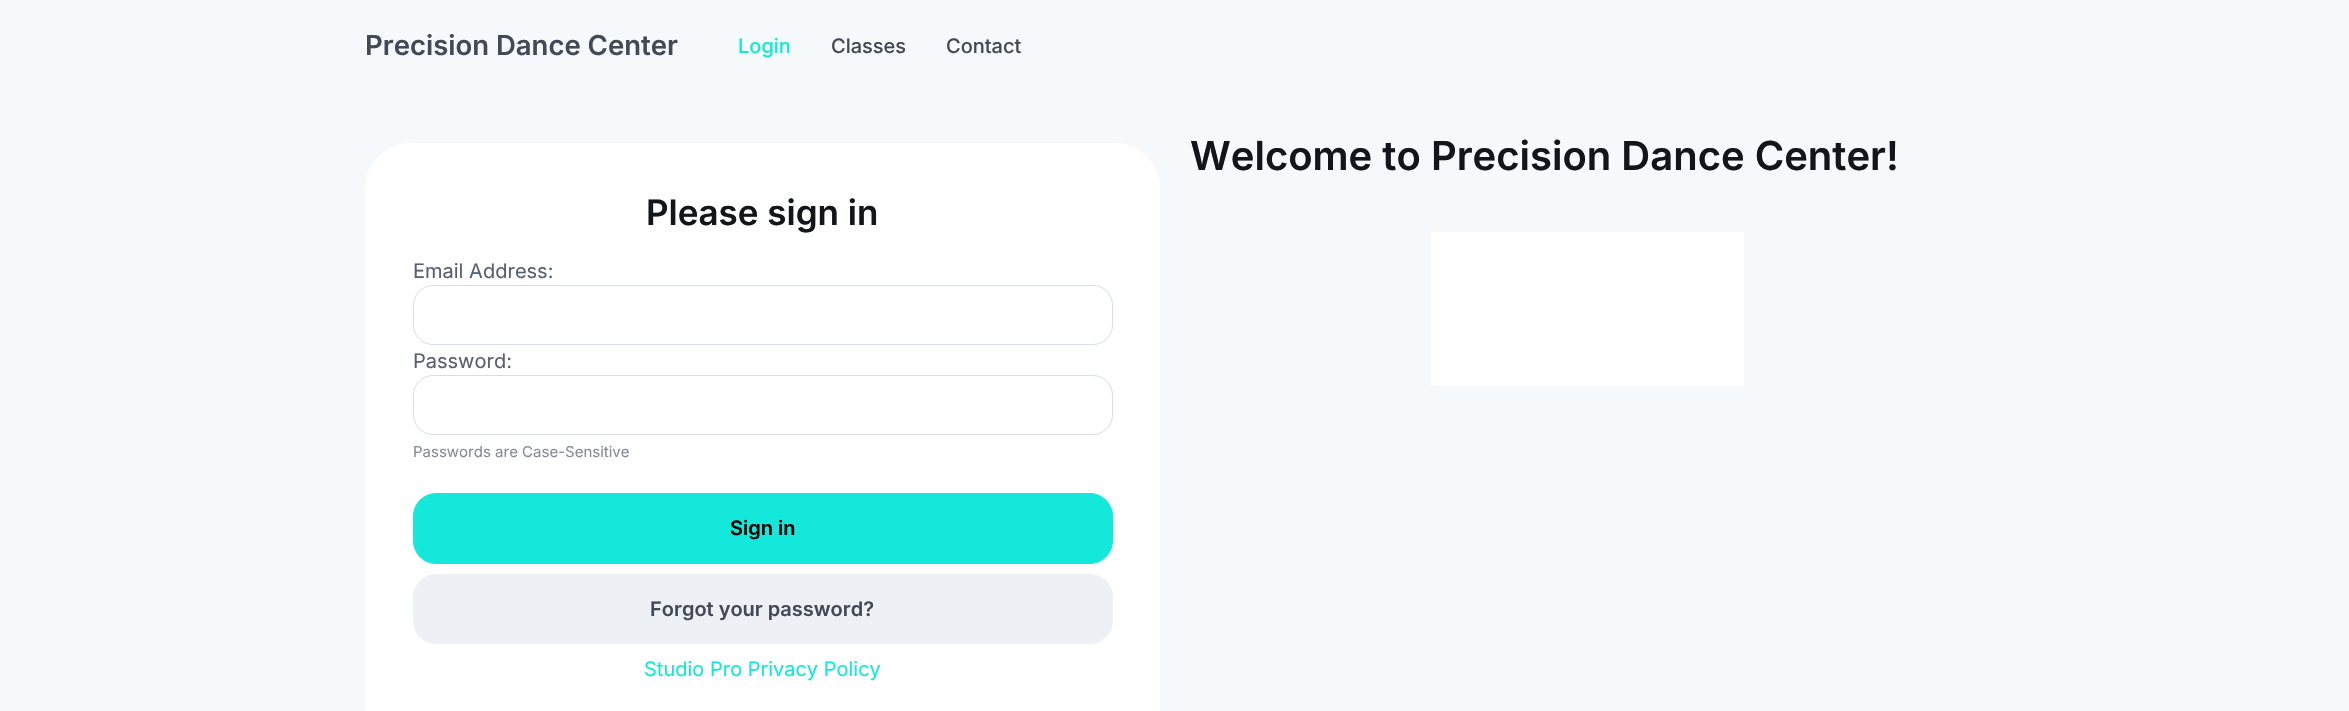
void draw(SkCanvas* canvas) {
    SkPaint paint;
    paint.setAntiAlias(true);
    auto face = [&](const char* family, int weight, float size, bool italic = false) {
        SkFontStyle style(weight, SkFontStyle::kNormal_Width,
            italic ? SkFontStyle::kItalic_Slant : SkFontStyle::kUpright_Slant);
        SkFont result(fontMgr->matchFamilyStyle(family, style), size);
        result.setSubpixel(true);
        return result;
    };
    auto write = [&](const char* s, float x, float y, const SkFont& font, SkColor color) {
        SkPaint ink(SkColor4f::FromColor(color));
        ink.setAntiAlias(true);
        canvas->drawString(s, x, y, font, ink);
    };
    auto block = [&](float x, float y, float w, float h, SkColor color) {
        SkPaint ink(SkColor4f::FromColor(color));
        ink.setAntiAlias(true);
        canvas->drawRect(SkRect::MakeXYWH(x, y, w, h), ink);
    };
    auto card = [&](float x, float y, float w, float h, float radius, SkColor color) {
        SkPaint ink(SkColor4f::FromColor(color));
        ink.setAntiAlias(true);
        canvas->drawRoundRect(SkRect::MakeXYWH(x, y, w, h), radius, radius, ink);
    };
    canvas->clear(SkColorSetRGB(246, 249, 252));
    auto kFont1 = face("Inter", 600, 27.5f);
    write("Precision Dance Center", 365, 55, kFont1, SkColorSetRGB(67, 74, 87));
    auto kFont2 = face("Inter", 500, 20);
    write("Login", 738, 53, kFont2, SkColorSetRGB(19, 232, 218));
    write("Classes", 831, 53, kFont2, SkColorSetRGB(67, 74, 87));
    write("Contact", 946, 53, kFont2, SkColorSetRGB(67, 74, 87));
    auto kFont3 = face("Inter", 600, 40);
    write("Welcome to Precision Dance Center!", 1190, 170, kFont3, SkColorSetRGB(18, 21, 25));
    block(1431, 232, 313, 154, SK_ColorWHITE);
    card(365, 143, 795, 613, 45, SK_ColorWHITE);
    auto kFont4 = face("Inter", 600, 35);
    write("Please sign in", 646, 225, kFont4, SkColorSetRGB(18, 21, 25));
    auto kFont5 = face("Inter", 400, 20);
    write("Email Address:", 413, 278, kFont5, SkColorSetRGB(87, 96, 113));
    paint.setStyle(SkPaint::kStroke_Style);
    paint.setStrokeWidth(1);
    paint.setColor(SkColorSetRGB(215, 221, 226));
    canvas->drawRoundRect(SkRect::MakeXYWH(413.5f, 285.5f, 699, 59), 19.5f, 19.5f, paint);
    write("Password:", 413, 368, kFont5, SkColorSetRGB(87, 96, 113));
    canvas->drawRoundRect(SkRect::MakeXYWH(413.5f, 375.5f, 699, 59), 19.5f, 19.5f, paint);
    auto kFont6 = face("Inter", 400, 15);
    write("Passwords are Case-Sensitive", 413, 457, kFont6, SkColorSetRGB(133, 140, 151));
    paint.setStyle(SkPaint::kFill_Style);
    paint.setColor(SkColorSetRGB(19, 232, 218));
    canvas->drawRoundRect(SkRect::MakeXYWH(413.5f, 493.5f, 699, 70), 22.5f, 22.5f, paint);
    paint.setStyle(SkPaint::kStroke_Style);
    canvas->drawRoundRect(SkRect::MakeXYWH(413.5f, 493.5f, 699, 70), 22.5f, 22.5f, paint);
    auto kFont7 = face("Inter", 600, 20);
    write("Sign in", 730, 535, kFont7, SK_ColorBLACK);
    paint.setStyle(SkPaint::kFill_Style);
    paint.setColor(SkColorSetRGB(237, 241, 245));
    canvas->drawRoundRect(SkRect::MakeXYWH(413.5f, 574.5f, 699, 69), 22.5f, 22.5f, paint);
    paint.setStyle(SkPaint::kStroke_Style);
    canvas->drawRoundRect(SkRect::MakeXYWH(413.5f, 574.5f, 699, 69), 22.5f, 22.5f, paint);
    write("Forgot your password?", 650, 616, kFont7, SkColorSetRGB(67, 74, 87));
    write("Studio Pro Privacy Policy", 644, 676, kFont5, SkColorSetRGB(19, 232, 218));
}
